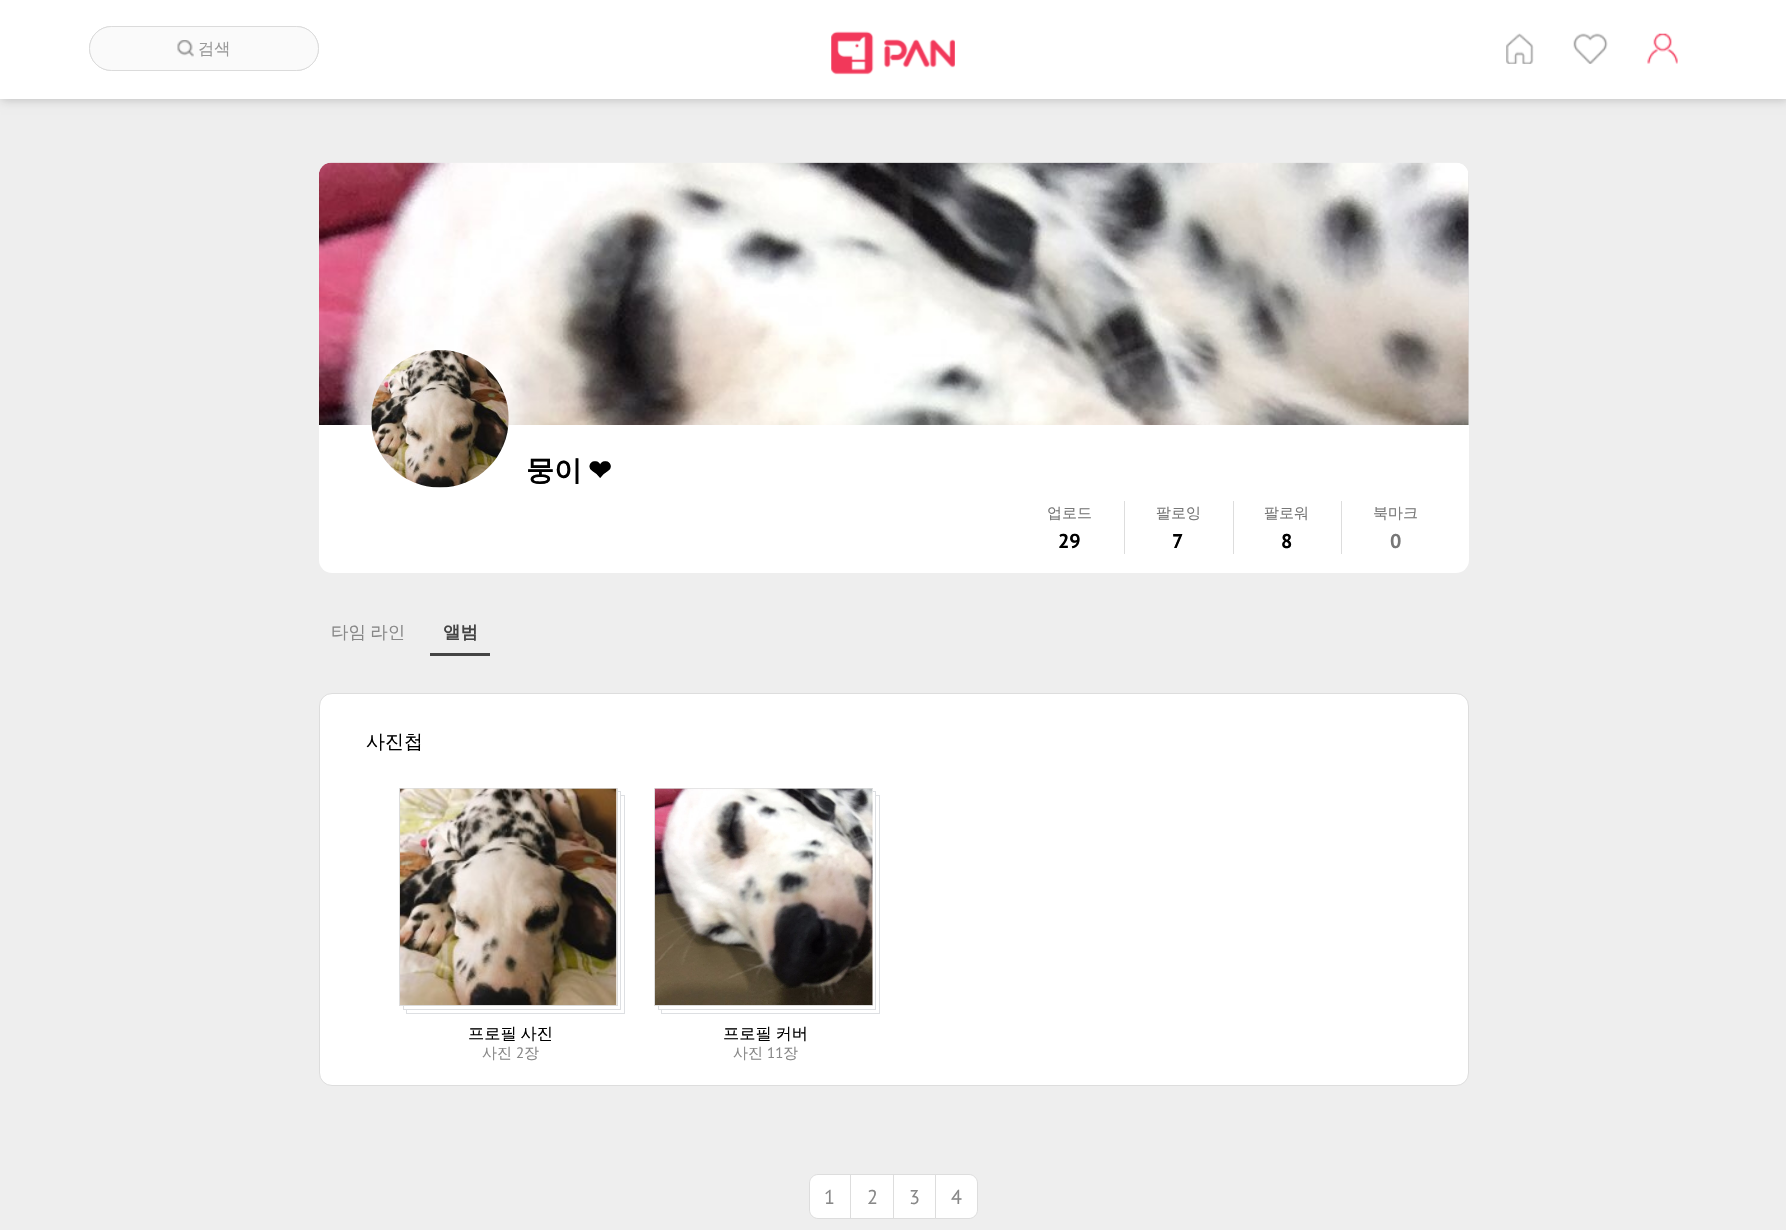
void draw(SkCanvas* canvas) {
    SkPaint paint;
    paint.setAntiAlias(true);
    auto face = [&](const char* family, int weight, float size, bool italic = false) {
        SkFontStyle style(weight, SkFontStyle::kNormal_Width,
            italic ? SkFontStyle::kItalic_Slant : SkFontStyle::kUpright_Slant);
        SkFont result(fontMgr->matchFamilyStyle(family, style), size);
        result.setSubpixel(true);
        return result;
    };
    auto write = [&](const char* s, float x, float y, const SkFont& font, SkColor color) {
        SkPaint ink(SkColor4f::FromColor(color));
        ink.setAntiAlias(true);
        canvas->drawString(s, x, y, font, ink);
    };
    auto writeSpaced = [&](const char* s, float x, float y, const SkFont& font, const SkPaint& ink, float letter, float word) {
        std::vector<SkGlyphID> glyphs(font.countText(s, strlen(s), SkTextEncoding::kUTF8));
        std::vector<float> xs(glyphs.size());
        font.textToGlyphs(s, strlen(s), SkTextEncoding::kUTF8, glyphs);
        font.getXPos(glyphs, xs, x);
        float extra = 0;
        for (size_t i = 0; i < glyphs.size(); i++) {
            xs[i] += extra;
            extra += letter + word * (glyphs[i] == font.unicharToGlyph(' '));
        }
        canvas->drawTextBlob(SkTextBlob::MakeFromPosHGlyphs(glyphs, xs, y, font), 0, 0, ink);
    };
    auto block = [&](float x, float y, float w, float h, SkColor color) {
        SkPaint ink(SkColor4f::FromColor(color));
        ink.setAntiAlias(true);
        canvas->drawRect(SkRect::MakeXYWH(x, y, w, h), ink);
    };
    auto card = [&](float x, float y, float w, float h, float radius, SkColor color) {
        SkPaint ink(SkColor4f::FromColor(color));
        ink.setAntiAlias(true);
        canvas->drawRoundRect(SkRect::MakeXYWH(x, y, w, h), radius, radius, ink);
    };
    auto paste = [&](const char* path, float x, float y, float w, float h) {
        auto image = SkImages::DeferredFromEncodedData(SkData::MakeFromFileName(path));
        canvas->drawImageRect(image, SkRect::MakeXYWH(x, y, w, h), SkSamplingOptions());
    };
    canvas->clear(SkColorSetRGB(238, 238, 238));
    paint.setColor(SkColorSetARGB(51, 0, 0, 0));
    paint.setMaskFilter(SkMaskFilter::MakeBlur(kNormal_SkBlurStyle, 5));
    canvas->drawRect(SkRect::MakeXYWH(1, 0, 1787, 100), paint);
    paint.setMaskFilter(nullptr);
    block(0, 0, 1786, 99, SK_ColorWHITE);
    paint.setStyle(SkPaint::kStroke_Style);
    paint.setStrokeWidth(1);
    paint.setColor(SkColorSetRGB(221, 221, 221));
    canvas->drawRoundRect(SkRect::MakeXYWH(89.5f, 26.5f, 229, 44), 22, 22, paint);
    paint.setStyle(SkPaint::kFill_Style);
    paint.setColor(SkColorSetRGB(250, 250, 250));
    canvas->drawRoundRect(SkRect::MakeXYWH(89.5f, 26.5f, 229, 44), 22, 22, paint);
    paint.setStyle(SkPaint::kStroke_Style);
    paint.setColor(SkColorSetRGB(219, 219, 219));
    canvas->drawRoundRect(SkRect::MakeXYWH(89.5f, 26.5f, 229, 44), 22, 22, paint);
    paste("pic1.png", 177, 40, 17, 17);
    auto kFont1 = face("WenQuanYi Zen Hei", 500, 16.25f);
    write("검색", 198, 54, kFont1, SkColorSetRGB(153, 153, 153));
    paste("pic2.png", 831, 31, 124, 44);
    paste("pic3.png", 1506, 33, 28, 31);
    paste("pic4.png", 1573, 33, 35, 31);
    paste("pic5.png", 1647, 33, 31, 31);
    card(319, 163, 1150, 410, 13, SK_ColorWHITE);
    paint.setStyle(SkPaint::kFill_Style);
    paint.setColor(SkColorSetRGB(221, 221, 221));
    canvas->drawPath(SkPathBuilder().moveTo(332, 163).lineTo(1456, 163).cubicTo(1463, 163, 1469, 169, 1469, 176).lineTo(1469, 425).lineTo(319, 425).lineTo(319, 176).cubicTo(319, 169, 325, 163, 332, 163).close().detach(), paint);
    paste("pic6.png", 319, 162, 1150, 263);
    paste("pic7.png", 371, 350, 138, 138);
    auto kFont2 = face("WenQuanYi Zen Hei", 700, 28);
    write("뭉이", 526, 480, kFont2, SK_ColorBLACK);
    auto kFont3 = face("DejaVu Sans", 700, 28);
    write("❤", 588, 480, kFont3, SK_ColorBLACK);
    block(1124, 501, 1, 53, SkColorSetRGB(221, 221, 221));
    auto kFont4 = face("WenQuanYi Zen Hei", 500, 15);
    write("업로드", 1047, 518, kFont4, SkColorSetRGB(119, 119, 119));
    auto kFont5 = face("PT Sans", 700, 20);
    write("29", 1058, 548, kFont5, SK_ColorBLACK);
    block(1233, 501, 1, 53, SkColorSetRGB(221, 221, 221));
    write("팔로잉", 1156, 518, kFont4, SkColorSetRGB(119, 119, 119));
    write("7", 1172, 548, kFont5, SK_ColorBLACK);
    block(1341, 501, 1, 53, SkColorSetRGB(221, 221, 221));
    write("팔로워", 1264, 518, kFont4, SkColorSetRGB(119, 119, 119));
    write("8", 1281, 548, kFont5, SK_ColorBLACK);
    write("북마크", 1373, 518, kFont4, SkColorSetRGB(119, 119, 119));
    write("0", 1390, 548, kFont5, SkColorSetRGB(119, 119, 119));
    auto kFont6 = face("WenQuanYi Zen Hei", 500, 17.5f);
    paint.setColor(SkColorSetRGB(136, 136, 136));
    writeSpaced("타임 라인", 331, 638, kFont6, paint, 0, -1);
    block(430, 653, 60, 3, SkColorSetRGB(68, 68, 68));
    auto kFont7 = face("WenQuanYi Zen Hei", 700, 17.5f);
    write("앨범", 443, 638, kFont7, SkColorSetRGB(68, 68, 68));
    paint.setColor(SK_ColorWHITE);
    canvas->drawRoundRect(SkRect::MakeXYWH(319.5f, 693.5f, 1149, 392), 12.5f, 12.5f, paint);
    paint.setStyle(SkPaint::kStroke_Style);
    paint.setColor(SkColorSetRGB(221, 221, 221));
    canvas->drawRoundRect(SkRect::MakeXYWH(319.5f, 693.5f, 1149, 392), 12.5f, 12.5f, paint);
    auto kFont8 = face("WenQuanYi Zen Hei", 500, 19);
    write("사진첩", 366, 748, kFont8, SK_ColorBLACK);
    paint.setColor(SkColorSetRGB(221, 223, 226));
    canvas->drawRect(SkRect::MakeXYWH(406.5f, 795.5f, 218, 218), paint);
    block(406, 795, 214, 214, SK_ColorWHITE);
    canvas->drawRect(SkRect::MakeXYWH(403.5f, 791.5f, 217, 218), paint);
    block(616, 789, 1, 3, SK_ColorWHITE);
    paint.setColor(SkColorSetRGB(221, 221, 221));
    canvas->drawRect(SkRect::MakeXYWH(399.5f, 788.5f, 218, 217), paint);
    paste("pic8.png", 400, 788, 217, 217);
    paint.setStyle(SkPaint::kFill_Style);
    paint.setColor(SK_ColorBLACK);
    writeSpaced("프로필 사진", 468, 1039, kFont1, paint, 0, -1);
    write("사진", 482, 1058, kFont4, SkColorSetRGB(136, 136, 136));
    auto kFont9 = face("PT Sans", 400, 15);
    write("2", 516, 1058, kFont9, SkColorSetRGB(136, 136, 136));
    write("장", 524, 1058, kFont4, SkColorSetRGB(136, 136, 136));
    paint.setStyle(SkPaint::kStroke_Style);
    paint.setColor(SkColorSetRGB(221, 223, 226));
    canvas->drawRect(SkRect::MakeXYWH(661.5f, 795.5f, 218, 218), paint);
    block(661, 795, 214, 214, SK_ColorWHITE);
    canvas->drawRect(SkRect::MakeXYWH(658.5f, 791.5f, 217, 218), paint);
    block(872, 789, 1, 3, SK_ColorWHITE);
    canvas->save();
    canvas->clipRect(SkRect::MakeXYWH(654, 788, 219, 218));
    paint.setColor(SkColorSetRGB(221, 221, 221));
    canvas->drawRect(SkRect::MakeXYWH(654.5f, 788.5f, 290, 217), paint);
    canvas->restore();
    paste("pic9.png", 655, 788, 218, 217);
    paint.setStyle(SkPaint::kFill_Style);
    paint.setColor(SK_ColorBLACK);
    writeSpaced("프로필 커버", 723, 1039, kFont1, paint, 0, -1);
    write("사진", 733, 1058, kFont4, SkColorSetRGB(136, 136, 136));
    write("11", 767, 1058, kFont9, SkColorSetRGB(136, 136, 136));
    write("장", 783, 1058, kFont4, SkColorSetRGB(136, 136, 136));
    paint.setColor(SK_ColorWHITE);
    canvas->drawPath(SkPathBuilder().moveTo(818, 1174.5f).lineTo(850.5f, 1174.5f).lineTo(850.5f, 1218.5f).lineTo(818, 1218.5f).cubicTo(813.5f, 1218.5f, 809.5f, 1214.5f, 809.5f, 1210).lineTo(809.5f, 1183).cubicTo(809.5f, 1178.5f, 813.5f, 1174.5f, 818, 1174.5f).close().detach(), paint);
    paint.setStyle(SkPaint::kStroke_Style);
    paint.setColor(SkColorSetRGB(221, 221, 221));
    canvas->drawPath(SkPathBuilder().moveTo(818, 1174.5f).lineTo(850.5f, 1174.5f).lineTo(850.5f, 1218.5f).lineTo(818, 1218.5f).cubicTo(813.5f, 1218.5f, 809.5f, 1214.5f, 809.5f, 1210).lineTo(809.5f, 1183).cubicTo(809.5f, 1178.5f, 813.5f, 1174.5f, 818, 1174.5f).close().detach(), paint);
    auto kFont10 = face("PT Sans", 400, 20);
    write("1", 824, 1204, kFont10, SkColorSetRGB(136, 136, 136));
    paint.setStyle(SkPaint::kFill_Style);
    paint.setColor(SK_ColorWHITE);
    canvas->drawRect(SkRect::MakeXYWH(850.5f, 1174.5f, 43, 44), paint);
    paint.setStyle(SkPaint::kStroke_Style);
    paint.setColor(SkColorSetRGB(221, 221, 221));
    canvas->drawRect(SkRect::MakeXYWH(850.5f, 1174.5f, 43, 44), paint);
    write("2", 867, 1204, kFont10, SkColorSetRGB(136, 136, 136));
    paint.setStyle(SkPaint::kFill_Style);
    paint.setColor(SK_ColorWHITE);
    canvas->drawRect(SkRect::MakeXYWH(893.5f, 1174.5f, 42, 44), paint);
    paint.setStyle(SkPaint::kStroke_Style);
    paint.setColor(SkColorSetRGB(221, 221, 221));
    canvas->drawRect(SkRect::MakeXYWH(893.5f, 1174.5f, 42, 44), paint);
    write("3", 909, 1204, kFont10, SkColorSetRGB(136, 136, 136));
    paint.setStyle(SkPaint::kFill_Style);
    paint.setColor(SK_ColorWHITE);
    canvas->drawPath(SkPathBuilder().moveTo(935.5f, 1174.5f).lineTo(969, 1174.5f).cubicTo(973.5f, 1174.5f, 977.5f, 1178.5f, 977.5f, 1183).lineTo(977.5f, 1210).cubicTo(977.5f, 1214.5f, 973.5f, 1218.5f, 969, 1218.5f).lineTo(935.5f, 1218.5f).close().detach(), paint);
    paint.setStyle(SkPaint::kStroke_Style);
    paint.setColor(SkColorSetRGB(221, 221, 221));
    canvas->drawPath(SkPathBuilder().moveTo(935.5f, 1174.5f).lineTo(969, 1174.5f).cubicTo(973.5f, 1174.5f, 977.5f, 1178.5f, 977.5f, 1183).lineTo(977.5f, 1210).cubicTo(977.5f, 1214.5f, 973.5f, 1218.5f, 969, 1218.5f).lineTo(935.5f, 1218.5f).close().detach(), paint);
    write("4", 951, 1204, kFont10, SkColorSetRGB(136, 136, 136));
}
